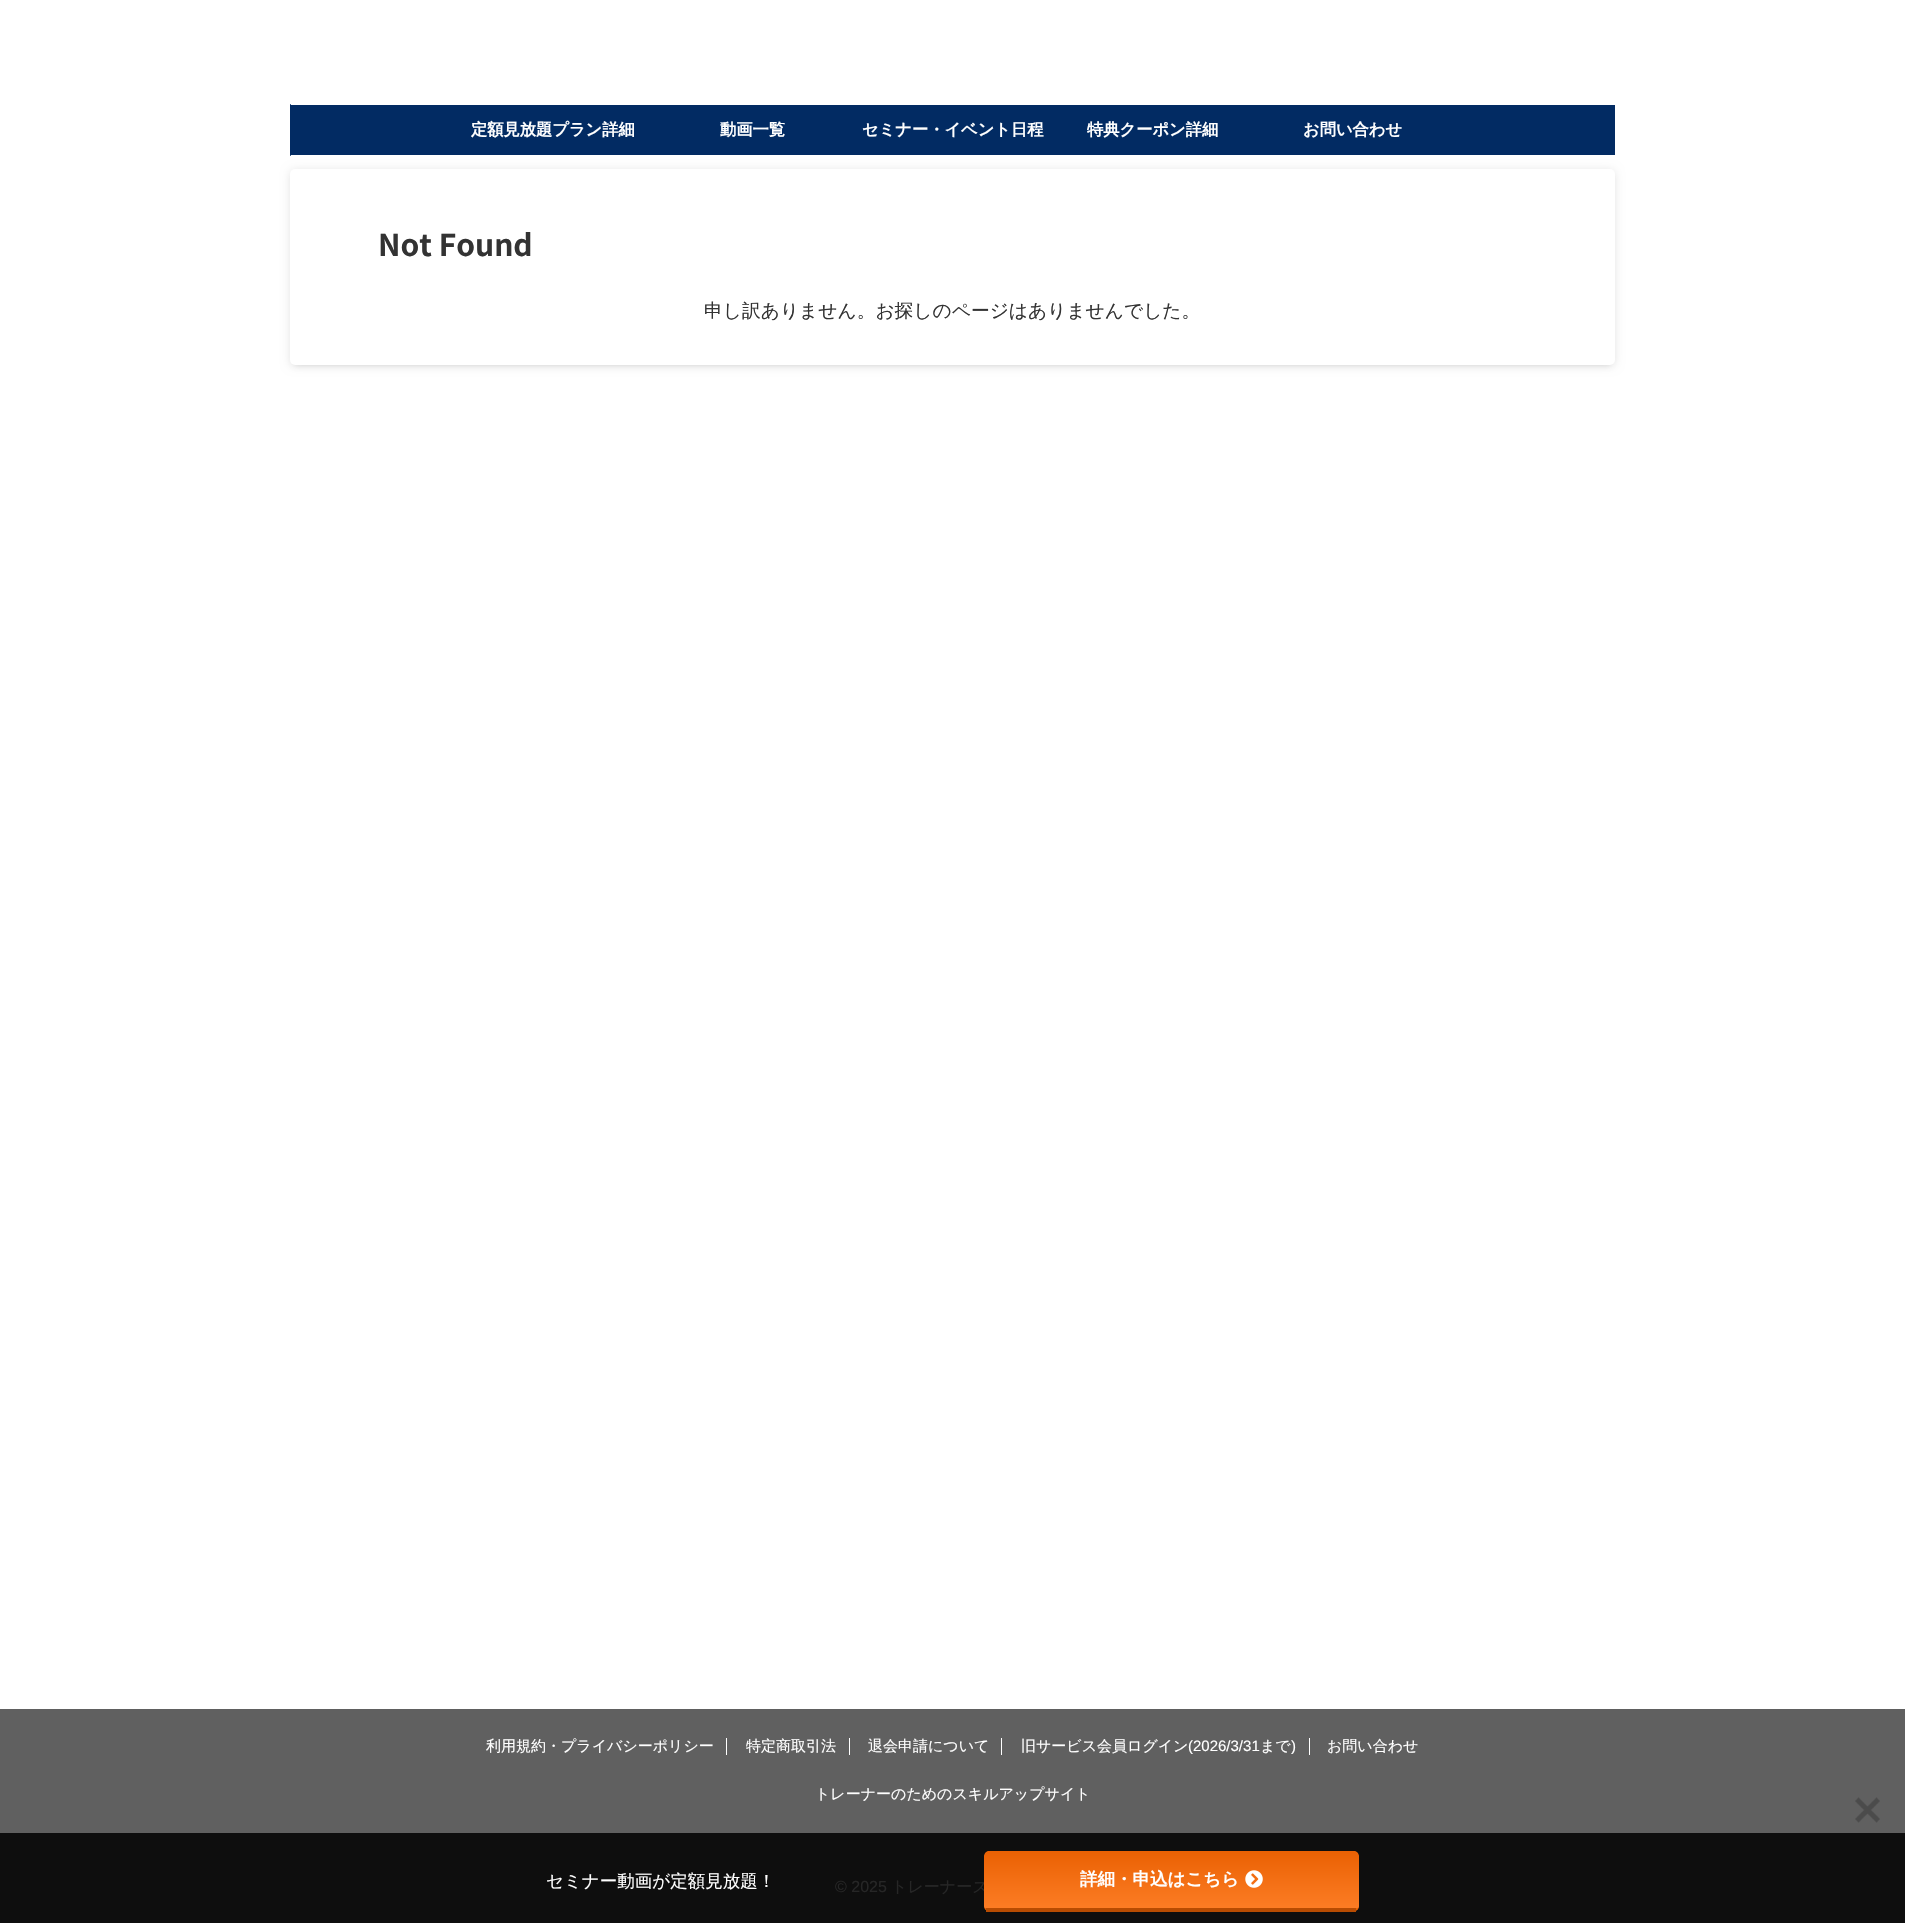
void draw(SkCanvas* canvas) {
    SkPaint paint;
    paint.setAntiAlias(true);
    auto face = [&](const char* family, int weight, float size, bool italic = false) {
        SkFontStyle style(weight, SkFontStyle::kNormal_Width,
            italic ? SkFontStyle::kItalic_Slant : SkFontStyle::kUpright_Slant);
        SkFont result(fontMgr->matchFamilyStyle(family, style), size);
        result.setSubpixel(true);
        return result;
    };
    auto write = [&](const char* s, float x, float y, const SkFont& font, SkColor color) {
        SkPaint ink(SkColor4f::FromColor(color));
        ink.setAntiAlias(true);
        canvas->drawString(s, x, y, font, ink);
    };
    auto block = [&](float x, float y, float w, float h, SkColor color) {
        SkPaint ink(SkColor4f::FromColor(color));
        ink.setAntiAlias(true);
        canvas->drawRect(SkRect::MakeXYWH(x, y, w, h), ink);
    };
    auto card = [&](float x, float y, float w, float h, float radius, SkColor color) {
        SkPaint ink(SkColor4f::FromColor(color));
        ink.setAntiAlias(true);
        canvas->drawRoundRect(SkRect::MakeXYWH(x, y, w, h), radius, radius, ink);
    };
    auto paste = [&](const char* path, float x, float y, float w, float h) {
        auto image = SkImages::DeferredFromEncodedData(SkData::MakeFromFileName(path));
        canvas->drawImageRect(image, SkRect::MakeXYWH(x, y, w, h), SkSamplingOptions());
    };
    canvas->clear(SK_ColorWHITE);
    card(290, 104, 1325, 52, 1, SkColorSetRGB(2, 43, 99));
    block(291, 104, 1324, 1, SK_ColorWHITE);
    block(291, 155, 1324, 1, SK_ColorWHITE);
    auto kFont1 = face("WenQuanYi Zen Hei", 700, 16.25f);
    write("定額見放題プラン詳細", 471, 135, kFont1, SK_ColorWHITE);
    write("動画一覧", 720, 135, kFont1, SK_ColorWHITE);
    write("セミナー・イベント日程", 862, 135, kFont1, SK_ColorWHITE);
    write("特典クーポン詳細", 1087, 135, kFont1, SK_ColorWHITE);
    write("お問い合わせ", 1303, 135, kFont1, SK_ColorWHITE);
    paint.setColor(SkColorSetARGB(26, 0, 0, 0));
    paint.setMaskFilter(SkMaskFilter::MakeBlur(kNormal_SkBlurStyle, 2.5f));
    canvas->drawRect(SkRect::MakeXYWH(295, 179, 1315, 186), paint);
    paint.setMaskFilter(nullptr);
    paint.setMaskFilter(SkMaskFilter::MakeBlur(kNormal_SkBlurStyle, 5));
    canvas->drawRoundRect(SkRect::MakeXYWH(290, 170, 1325, 196), 5, 5, paint);
    paint.setMaskFilter(nullptr);
    card(290, 169, 1325, 196, 5, SK_ColorWHITE);
    auto kFont2 = face("Noto Sans JP", 700, 30);
    write("Not Found", 378, 256, kFont2, SkColorSetRGB(51, 51, 51));
    auto kFont3 = face("WenQuanYi Zen Hei", 500, 18.75f);
    write("申し訳ありません。お探しのページはありませんでした。", 704, 317, kFont3, SkColorSetRGB(51, 51, 51));
    block(0, 1709, 1905, 124, SkColorSetRGB(96, 96, 96));
    block(0, 1833, 1905, 90, SkColorSetRGB(14, 14, 14));
    auto kFont4 = face("WenQuanYi Zen Hei", 500, 15);
    write("利用規約・プライバシーポリシー", 486, 1751, kFont4, SK_ColorWHITE);
    block(726, 1738, 1, 17, SK_ColorWHITE);
    write("特定商取引法", 746, 1751, kFont4, SK_ColorWHITE);
    block(849, 1738, 1, 17, SK_ColorWHITE);
    write("退会申請について", 868, 1751, kFont4, SK_ColorWHITE);
    block(1001, 1738, 1, 17, SK_ColorWHITE);
    write("旧サービス会員ログイン", 1021, 1751, kFont4, SK_ColorWHITE);
    auto kFont5 = face("Liberation Sans", 400, 15);
    write("(2026/3/31", 1188, 1751, kFont5, SK_ColorWHITE);
    write("まで", 1260, 1751, kFont4, SK_ColorWHITE);
    write(")", 1291, 1751, kFont5, SK_ColorWHITE);
    block(1309, 1738, 1, 17, SK_ColorWHITE);
    write("お問い合わせ", 1327, 1751, kFont4, SK_ColorWHITE);
    write("トレーナーのためのスキルアップサイト", 815, 1799, kFont4, SK_ColorWHITE);
    auto kFont6 = face("Liberation Sans", 400, 16);
    write("© 2025", 835, 1892, kFont6, SkColorSetRGB(38, 38, 38));
    auto kFont7 = face("WenQuanYi Zen Hei", 500, 16);
    write("トレーナーズ", 891, 1892, kFont7, SkColorSetRGB(38, 38, 38));
    paste("pic1.png", 1855, 1797, 25, 26);
    auto kFont8 = face("WenQuanYi Zen Hei", 500, 17.5f);
    write("セミナー動画が定額見放題！", 546, 1887, kFont8, SK_ColorWHITE);
    canvas->save();
    canvas->clipPath(SkPathBuilder().moveTo(989, 1851).lineTo(1354, 1851).cubicTo(1357, 1851, 1359, 1853, 1359, 1856).lineTo(1359, 1906).cubicTo(1359, 1909, 1357, 1911, 1354, 1911).lineTo(989, 1911).cubicTo(986, 1911, 984, 1909, 984, 1906).lineTo(984, 1856).cubicTo(984, 1853, 986, 1851, 989, 1851).close().detach(), true);
    {
        const SkColor colors[] = {SkColorSetRGB(234, 97, 3), SkColorSetRGB(252, 124, 36)};
        const float stops[] = {0, 1};
        const SkPoint ends[] = {{1171, 1851}, {1171, 1908}};
        paint.setShader(SkGradientShader::MakeLinear(ends, colors, stops, 2, SkTileMode::kClamp));
        paint.setAlpha(255);
    }
    canvas->drawPath(SkPathBuilder().moveTo(989, 1851).lineTo(1354, 1851).cubicTo(1357, 1851, 1359, 1853, 1359, 1856).lineTo(1359, 1908).lineTo(984, 1908).lineTo(984, 1856).cubicTo(984, 1853, 986, 1851, 989, 1851).close().detach(), paint);
    {
        const SkColor colors[] = {SkColorSetRGB(234, 97, 3), SkColorSetRGB(252, 124, 36)};
        const float stops[] = {0, 1};
        const SkPoint ends[] = {{1171, 1908}, {1171, 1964}};
        paint.setShader(SkGradientShader::MakeLinear(ends, colors, stops, 2, SkTileMode::kClamp));
        paint.setAlpha(255);
    }
    canvas->drawRect(SkRect::MakeXYWH(984, 1908, 375, 3), paint);
    canvas->restore();
    block(986, 1908, 370, 4, SkColorSetRGB(184, 76, 2));
    auto kFont9 = face("WenQuanYi Zen Hei", 700, 17.5f);
    write("詳細・申込はこちら", 1080, 1885, kFont9, SK_ColorWHITE);
    paste("pic2.png", 1245, 1870, 18, 18);
}
